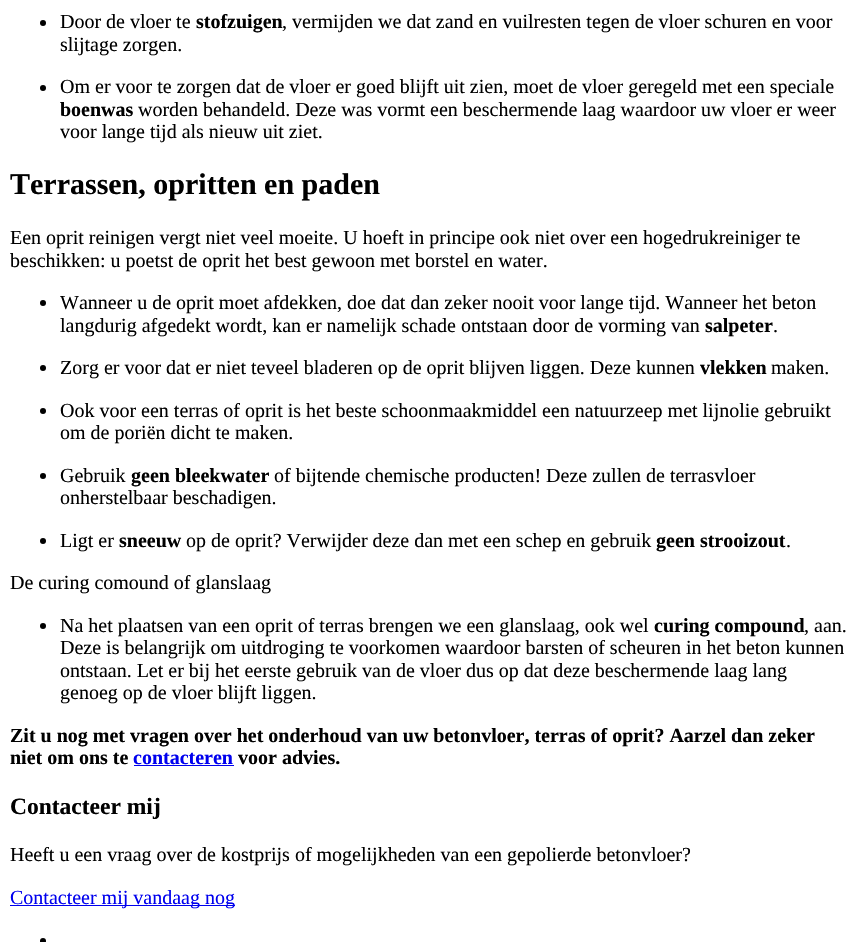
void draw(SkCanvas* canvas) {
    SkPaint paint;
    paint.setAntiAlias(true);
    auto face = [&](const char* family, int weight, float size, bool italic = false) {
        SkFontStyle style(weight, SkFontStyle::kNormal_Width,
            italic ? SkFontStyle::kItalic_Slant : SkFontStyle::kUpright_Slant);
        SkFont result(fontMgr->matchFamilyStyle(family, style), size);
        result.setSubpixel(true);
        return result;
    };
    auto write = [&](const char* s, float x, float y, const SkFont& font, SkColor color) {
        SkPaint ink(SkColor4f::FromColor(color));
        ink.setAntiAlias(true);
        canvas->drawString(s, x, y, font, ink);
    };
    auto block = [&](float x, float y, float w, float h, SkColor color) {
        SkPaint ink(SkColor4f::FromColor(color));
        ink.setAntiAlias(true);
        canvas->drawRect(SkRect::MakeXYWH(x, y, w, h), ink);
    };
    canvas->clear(SK_ColorWHITE);
    paint.setColor(SK_ColorBLACK);
    canvas->drawCircle(43, 23, 3, paint);
    auto kFont1 = face("Liberation Serif", 400, 20);
    write("Door de vloer te", 60, 28, kFont1, SK_ColorBLACK);
    auto kFont2 = face("Liberation Serif", 700, 20);
    write("stofzuigen", 196, 28, kFont2, SK_ColorBLACK);
    write(", vermijden we dat zand en vuilresten tegen de vloer schuren en voor", 282, 28, kFont1, SK_ColorBLACK);
    write("slijtage zorgen.", 60, 51, kFont1, SK_ColorBLACK);
    canvas->drawCircle(43, 88, 3, paint);
    write("Om er voor te zorgen dat de vloer er goed blijft uit zien, moet de vloer geregeld met een speciale", 60, 93, kFont1, SK_ColorBLACK);
    write("boenwas", 60, 116, kFont2, SK_ColorBLACK);
    write("worden behandeld. Deze was vormt een beschermende laag waardoor uw vloer er weer", 138, 116, kFont1, SK_ColorBLACK);
    write("voor lange tijd als nieuw uit ziet.", 60, 138, kFont1, SK_ColorBLACK);
    auto kFont3 = face("Liberation Serif", 700, 30);
    write("Terrassen, opritten en paden", 10, 194, kFont3, SK_ColorBLACK);
    write("Een oprit reinigen vergt niet veel moeite. U hoeft in principe ook niet over een hogedrukreiniger te", 10, 244, kFont1, SK_ColorBLACK);
    write("beschikken: u poetst de oprit het best gewoon met borstel en water.", 10, 267, kFont1, SK_ColorBLACK);
    canvas->drawCircle(43, 303, 3, paint);
    write("Wanneer u de oprit moet afdekken, doe dat dan zeker nooit voor lange tijd. Wanneer het beton", 60, 309, kFont1, SK_ColorBLACK);
    write("langdurig afgedekt wordt, kan er namelijk schade ontstaan door de vorming van", 60, 332, kFont1, SK_ColorBLACK);
    write("salpeter", 705, 332, kFont2, SK_ColorBLACK);
    write(".", 773, 332, kFont1, SK_ColorBLACK);
    canvas->drawCircle(43, 368, 3, paint);
    write("Zorg er voor dat er niet teveel bladeren op de oprit blijven liggen. Deze kunnen", 60, 374, kFont1, SK_ColorBLACK);
    write("vlekken", 700, 374, kFont2, SK_ColorBLACK);
    write("maken.", 771, 374, kFont1, SK_ColorBLACK);
    canvas->drawCircle(43, 411, 3, paint);
    write("Ook voor een terras of oprit is het beste schoonmaakmiddel een natuurzeep met lijnolie gebruikt", 60, 417, kFont1, SK_ColorBLACK);
    write("om de poriën dicht te maken.", 60, 439, kFont1, SK_ColorBLACK);
    canvas->drawCircle(43, 476, 3, paint);
    write("Gebruik", 60, 482, kFont1, SK_ColorBLACK);
    write("geen bleekwater", 131, 482, kFont2, SK_ColorBLACK);
    write("of bijtende chemische producten! Deze zullen de terrasvloer", 274, 482, kFont1, SK_ColorBLACK);
    write("onherstelbaar beschadigen.", 60, 504, kFont1, SK_ColorBLACK);
    canvas->drawCircle(43, 541, 3, paint);
    write("Ligt er", 60, 547, kFont1, SK_ColorBLACK);
    write("sneeuw", 119, 547, kFont2, SK_ColorBLACK);
    write("op de oprit? Verwijder deze dan met een schep en gebruik", 186, 547, kFont1, SK_ColorBLACK);
    write("geen strooizout", 656, 547, kFont2, SK_ColorBLACK);
    write(".", 786, 547, kFont1, SK_ColorBLACK);
    write("De curing comound of glanslaag", 10, 589, kFont1, SK_ColorBLACK);
    canvas->drawCircle(43, 626, 3, paint);
    write("Na het plaatsen van een oprit of terras brengen we een glanslaag, ook wel", 60, 632, kFont1, SK_ColorBLACK);
    write("curing compound", 654, 632, kFont2, SK_ColorBLACK);
    write(", aan.", 804, 632, kFont1, SK_ColorBLACK);
    write("Deze is belangrijk om uitdroging te voorkomen waardoor barsten of scheuren in het beton kunnen", 60, 654, kFont1, SK_ColorBLACK);
    write("ontstaan. Let er bij het eerste gebruik van de vloer dus op dat deze beschermende laag lang", 60, 677, kFont1, SK_ColorBLACK);
    write("genoeg op de vloer blijft liggen.", 60, 699, kFont1, SK_ColorBLACK);
    write("Zit u nog met vragen over het onderhoud van uw betonvloer, terras of oprit? Aarzel dan zeker", 10, 742, kFont2, SK_ColorBLACK);
    write("niet om ons te", 10, 764, kFont2, SK_ColorBLACK);
    write("contacteren", 133, 764, kFont2, SkColorSetRGB(0, 0, 238));
    block(134, 765, 100, 1, SkColorSetRGB(0, 0, 238));
    write("voor advies.", 238, 764, kFont2, SK_ColorBLACK);
    auto kFont4 = face("Liberation Serif", 700, 23.5f);
    write("Contacteer mij", 10, 814, kFont4, SK_ColorBLACK);
    write("Heeft u een vraag over de kostprijs of mogelijkheden van een gepolierde betonvloer?", 10, 861, kFont1, SK_ColorBLACK);
    block(10, 905, 225, 1, SkColorSetRGB(0, 0, 238));
    write("Contacteer mij vandaag nog", 10, 904, kFont1, SkColorSetRGB(0, 0, 238));
    canvas->drawCircle(43, 941, 3, paint);
}
